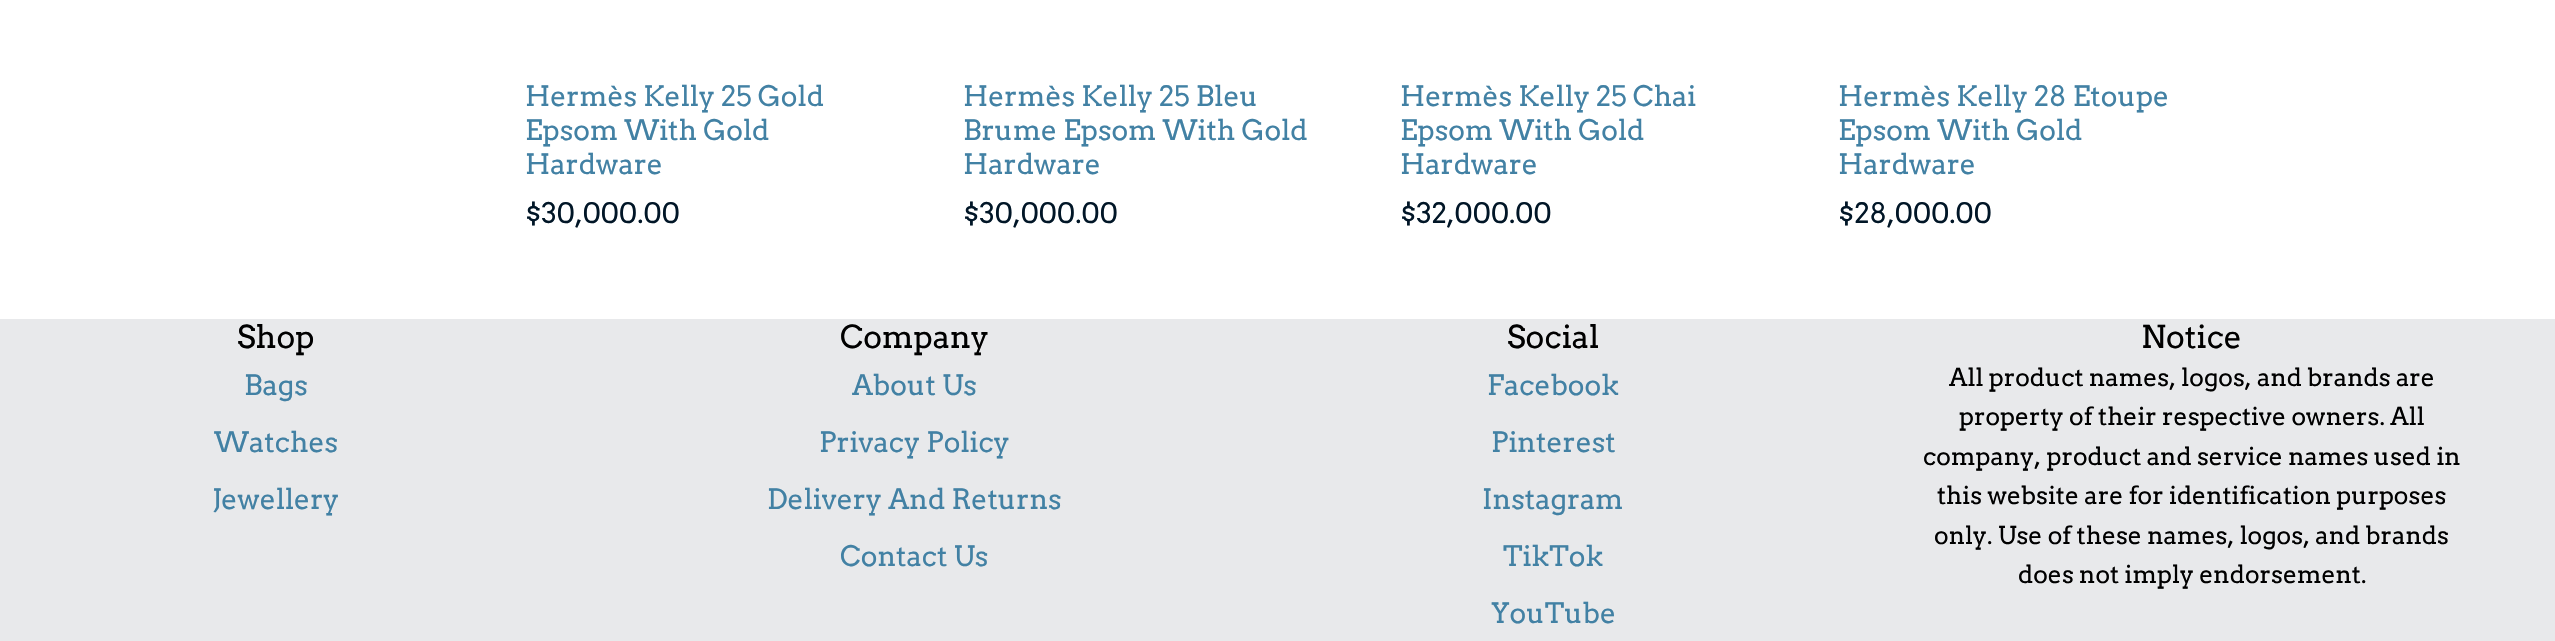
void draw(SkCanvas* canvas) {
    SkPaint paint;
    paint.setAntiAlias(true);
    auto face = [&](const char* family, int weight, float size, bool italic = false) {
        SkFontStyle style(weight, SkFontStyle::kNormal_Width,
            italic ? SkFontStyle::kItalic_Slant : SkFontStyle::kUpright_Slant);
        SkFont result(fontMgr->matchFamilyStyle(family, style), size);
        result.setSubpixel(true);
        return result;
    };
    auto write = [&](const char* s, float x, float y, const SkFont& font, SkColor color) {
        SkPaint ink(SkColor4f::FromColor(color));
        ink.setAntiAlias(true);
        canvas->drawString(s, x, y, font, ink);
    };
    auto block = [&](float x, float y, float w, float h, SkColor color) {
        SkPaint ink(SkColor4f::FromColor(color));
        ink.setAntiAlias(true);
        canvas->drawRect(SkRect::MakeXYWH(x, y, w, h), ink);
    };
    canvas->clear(SK_ColorWHITE);
    auto kFont1 = face("Arvo", 400, 28);
    write("Hermès Kelly 25 Gold", 525, 106, kFont1, SkColorSetRGB(66, 129, 164));
    write("Epsom With Gold", 525, 140, kFont1, SkColorSetRGB(66, 129, 164));
    write("Hardware", 525, 174, kFont1, SkColorSetRGB(66, 129, 164));
    write("$30,000.00", 525, 223, kFont1, SkColorSetRGB(1, 22, 39));
    write("Hermès Kelly 25 Bleu", 963, 106, kFont1, SkColorSetRGB(66, 129, 164));
    write("Brume Epsom With Gold", 963, 140, kFont1, SkColorSetRGB(66, 129, 164));
    write("Hardware", 963, 174, kFont1, SkColorSetRGB(66, 129, 164));
    write("$30,000.00", 963, 223, kFont1, SkColorSetRGB(1, 22, 39));
    write("Hermès Kelly 25 Chai", 1400, 106, kFont1, SkColorSetRGB(66, 129, 164));
    write("Epsom With Gold", 1400, 140, kFont1, SkColorSetRGB(66, 129, 164));
    write("Hardware", 1400, 174, kFont1, SkColorSetRGB(66, 129, 164));
    write("$32,000.00", 1400, 223, kFont1, SkColorSetRGB(1, 22, 39));
    write("Hermès Kelly 28 Etoupe", 1838, 106, kFont1, SkColorSetRGB(66, 129, 164));
    write("Epsom With Gold", 1838, 140, kFont1, SkColorSetRGB(66, 129, 164));
    write("Hardware", 1838, 174, kFont1, SkColorSetRGB(66, 129, 164));
    write("$28,000.00", 1838, 223, kFont1, SkColorSetRGB(1, 22, 39));
    block(0, 319, 2555, 322, SkColorSetRGB(232, 233, 235));
    auto kFont2 = face("Arvo", 400, 31.5f);
    write("Shop", 237, 348, kFont2, SK_ColorBLACK);
    write("Bags", 244, 395, kFont1, SkColorSetRGB(66, 129, 164));
    write("Watches", 214, 452, kFont1, SkColorSetRGB(66, 129, 164));
    write("Jewellery", 212, 509, kFont1, SkColorSetRGB(66, 129, 164));
    write("Company", 840, 348, kFont2, SK_ColorBLACK);
    write("About Us", 852, 395, kFont1, SkColorSetRGB(66, 129, 164));
    write("Privacy Policy", 819, 452, kFont1, SkColorSetRGB(66, 129, 164));
    write("Delivery And Returns", 767, 509, kFont1, SkColorSetRGB(66, 129, 164));
    write("Contact Us", 840, 566, kFont1, SkColorSetRGB(66, 129, 164));
    write("Social", 1507, 348, kFont2, SK_ColorBLACK);
    write("Facebook", 1487, 395, kFont1, SkColorSetRGB(66, 129, 164));
    write("Pinterest", 1491, 452, kFont1, SkColorSetRGB(66, 129, 164));
    write("Instagram", 1482, 509, kFont1, SkColorSetRGB(66, 129, 164));
    write("TikTok", 1503, 566, kFont1, SkColorSetRGB(66, 129, 164));
    write("YouTube", 1491, 623, kFont1, SkColorSetRGB(66, 129, 164));
    write("Notice", 2141, 348, kFont2, SK_ColorBLACK);
    auto kFont3 = face("Arvo", 400, 24.5f);
    write("All product names, logos, and brands are", 1949, 386, kFont3, SK_ColorBLACK);
    write("property of their respective owners. All", 1959, 425, kFont3, SK_ColorBLACK);
    write("company, product and service names used in", 1923, 465, kFont3, SK_ColorBLACK);
    write("this website are for identification purposes", 1937, 504, kFont3, SK_ColorBLACK);
    write("only. Use of these names, logos, and brands", 1934, 544, kFont3, SK_ColorBLACK);
    write("does not imply endorsement.", 2018, 583, kFont3, SK_ColorBLACK);
}
